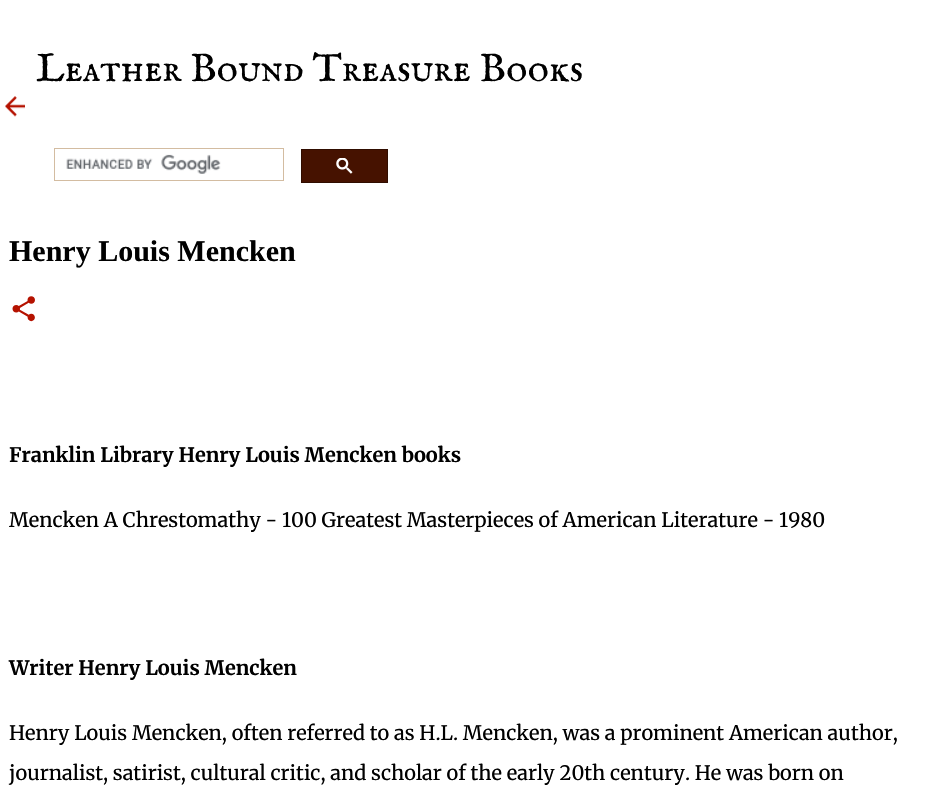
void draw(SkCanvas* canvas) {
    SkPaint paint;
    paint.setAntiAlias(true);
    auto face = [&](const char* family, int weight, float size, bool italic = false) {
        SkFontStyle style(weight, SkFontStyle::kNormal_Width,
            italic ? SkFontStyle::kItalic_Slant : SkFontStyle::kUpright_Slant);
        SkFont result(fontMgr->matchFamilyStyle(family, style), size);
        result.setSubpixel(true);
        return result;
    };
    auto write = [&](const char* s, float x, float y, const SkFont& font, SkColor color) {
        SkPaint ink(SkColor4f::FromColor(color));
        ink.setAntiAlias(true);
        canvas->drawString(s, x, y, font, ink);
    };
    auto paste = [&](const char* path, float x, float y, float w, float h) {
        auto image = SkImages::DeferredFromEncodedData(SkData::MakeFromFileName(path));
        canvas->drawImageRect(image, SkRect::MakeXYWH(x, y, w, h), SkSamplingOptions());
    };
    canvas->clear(SK_ColorWHITE);
    auto kFont1 = face("IM FELL English SC", 400, 40);
    write("Leather Bound Treasure Books", 36, 81, kFont1, SK_ColorBLACK);
    paint.setStyle(SkPaint::kStroke_Style);
    paint.setStrokeWidth(1);
    paint.setColor(SkColorSetRGB(211, 188, 161));
    canvas->drawRect(SkRect::MakeXYWH(54.5f, 148.5f, 229, 32), paint);
    paste("pic1.png", 66, 154, 155, 20);
    paint.setStyle(SkPaint::kFill_Style);
    paint.setColor(SkColorSetRGB(70, 18, 0));
    canvas->drawRect(SkRect::MakeXYWH(301.5f, 149.5f, 86, 33), paint);
    paint.setStyle(SkPaint::kStroke_Style);
    paint.setColor(SkColorSetRGB(48, 13, 0));
    canvas->drawRect(SkRect::MakeXYWH(301.5f, 149.5f, 86, 33), paint);
    paste("pic2.png", 336, 158, 17, 16);
    paste("pic3.png", 5, 96, 20, 21);
    auto kFont2 = face("Liberation Serif", 700, 30);
    write("Henry Louis Mencken", 9, 261, kFont2, SK_ColorBLACK);
    paste("pic4.png", 12, 296, 23, 26);
    auto kFont3 = face("Merriweather", 700, 20);
    write("Franklin Library Henry Louis Mencken books", 9, 462, kFont3, SK_ColorBLACK);
    auto kFont4 = face("Merriweather", 400, 20);
    write("Mencken A Chrestomathy - 100 Greatest Masterpieces of American Literature - 1980", 9, 527, kFont4, SK_ColorBLACK);
    write("Writer Henry Louis Mencken", 9, 675, kFont3, SK_ColorBLACK);
    write("Henry Louis Mencken, often referred to as H.L. Mencken, was a prominent American author,", 9, 740, kFont4, SK_ColorBLACK);
    write("journalist, satirist, cultural critic, and scholar of the early 20th century. He was born on", 9, 780, kFont4, SK_ColorBLACK);
}
